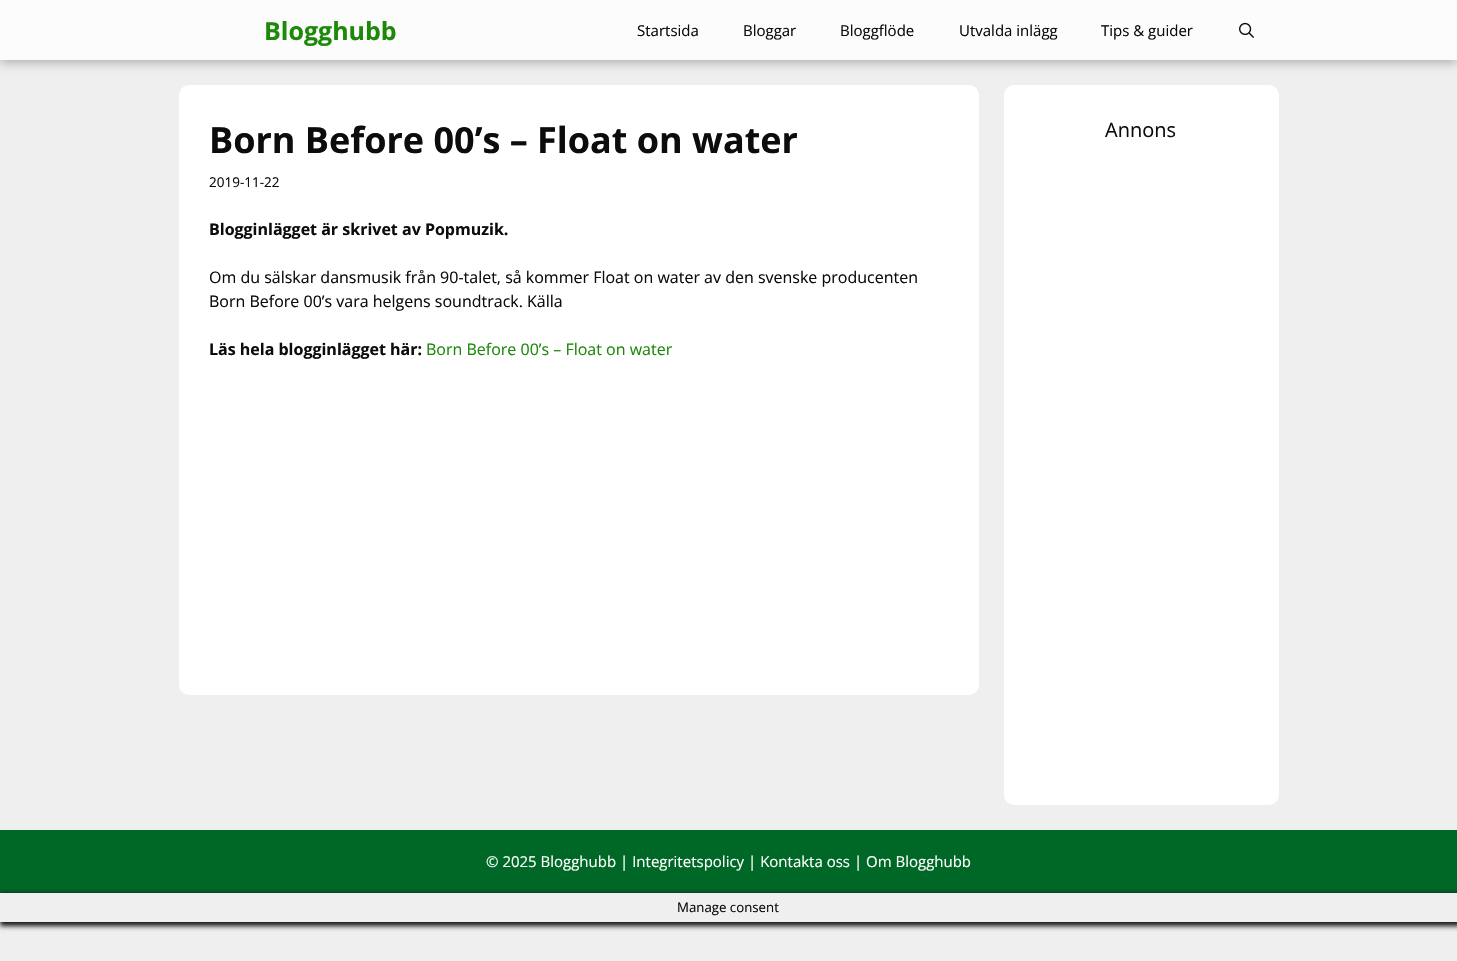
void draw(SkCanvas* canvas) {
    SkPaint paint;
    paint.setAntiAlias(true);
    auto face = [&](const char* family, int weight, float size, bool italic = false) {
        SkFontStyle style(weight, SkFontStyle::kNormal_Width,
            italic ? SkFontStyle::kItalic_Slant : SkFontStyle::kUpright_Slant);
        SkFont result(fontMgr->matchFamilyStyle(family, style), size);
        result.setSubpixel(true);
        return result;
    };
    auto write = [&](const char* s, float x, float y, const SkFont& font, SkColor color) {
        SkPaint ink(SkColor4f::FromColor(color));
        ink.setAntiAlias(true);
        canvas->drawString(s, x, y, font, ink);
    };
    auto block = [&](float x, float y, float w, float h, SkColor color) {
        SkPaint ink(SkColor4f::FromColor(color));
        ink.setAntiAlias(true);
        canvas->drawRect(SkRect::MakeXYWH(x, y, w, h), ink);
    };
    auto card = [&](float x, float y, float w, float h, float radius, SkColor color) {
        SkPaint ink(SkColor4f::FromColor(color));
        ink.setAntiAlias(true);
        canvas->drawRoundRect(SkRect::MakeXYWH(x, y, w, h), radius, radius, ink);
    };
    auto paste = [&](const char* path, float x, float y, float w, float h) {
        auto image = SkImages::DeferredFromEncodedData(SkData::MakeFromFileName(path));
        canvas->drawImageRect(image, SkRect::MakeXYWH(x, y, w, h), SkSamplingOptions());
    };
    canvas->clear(SkColorSetRGB(239, 239, 239));
    paint.setColor(SkColorSetRGB(176, 176, 176));
    paint.setMaskFilter(SkMaskFilter::MakeBlur(kNormal_SkBlurStyle, 5));
    canvas->drawRect(SkRect::MakeXYWH(0, 3, 1457, 60), paint);
    paint.setMaskFilter(nullptr);
    block(0, 0, 1457, 60, SkColorSetRGB(252, 252, 252));
    auto kFont1 = face("Open Sans", 700, 25);
    write("Blogghubb", 264, 40, kFont1, SkColorSetRGB(28, 137, 9));
    auto kFont2 = face("Open Sans", 400, 15);
    write("Startsida", 637, 36, kFont2, SkColorSetRGB(12, 12, 13));
    write("Bloggar", 743, 36, kFont2, SkColorSetRGB(12, 12, 13));
    write("Bloggflöde", 840, 36, kFont2, SkColorSetRGB(12, 12, 13));
    write("Utvalda inlägg", 959, 36, kFont2, SkColorSetRGB(12, 12, 13));
    write("Tips & guider", 1101, 36, kFont2, SkColorSetRGB(12, 12, 13));
    paste("pic1.png", 1239, 22, 15, 16);
    card(179, 85, 800, 610, 10, SK_ColorWHITE);
    auto kFont3 = face("Open Sans", 700, 36);
    write("Born Before 00’s – Float on water", 209, 153, kFont3, SkColorSetRGB(12, 12, 13));
    auto kFont4 = face("Open Sans", 400, 13.5f);
    write("2019-11-22", 209, 187, kFont4, SkColorSetRGB(12, 12, 13));
    auto kFont5 = face("Open Sans", 700, 16);
    write("Blogginlägget är skrivet av Popmuzik.", 209, 235, kFont5, SkColorSetRGB(12, 12, 13));
    auto kFont6 = face("Open Sans", 400, 16);
    write("Om du sälskar dansmusik från 90-talet, så kommer Float on water av den svenske producenten", 209, 283, kFont6, SkColorSetRGB(12, 12, 13));
    write("Born Before 00’s vara helgens soundtrack. Källa", 209, 307, kFont6, SkColorSetRGB(12, 12, 13));
    write("Läs hela blogginlägget här:", 209, 355, kFont5, SkColorSetRGB(12, 12, 13));
    write("Born Before 00’s – Float on water", 426, 355, kFont6, SkColorSetRGB(28, 137, 9));
    card(1004, 85, 275, 720, 10, SK_ColorWHITE);
    auto kFont7 = face("Open Sans", 400, 20);
    write("Annons", 1105, 137, kFont7, SkColorSetRGB(12, 12, 13));
    block(0, 830, 1457, 63, SkColorSetRGB(0, 104, 38));
    write("© 2025 Blogghubb | Integritetspolicy | Kontakta oss | Om Blogghubb", 486, 867, kFont2, SK_ColorWHITE);
    canvas->save();
    canvas->clipPath(SkPathBuilder(SkPathFillType::kEvenOdd).moveTo(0, 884).lineTo(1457, 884).lineTo(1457, 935).lineTo(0, 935).close().moveTo(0, 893).lineTo(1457, 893).lineTo(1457, 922).lineTo(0, 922).close().detach(), true);
    paint.setColor(SkColorSetRGB(22, 22, 22));
    paint.setMaskFilter(SkMaskFilter::MakeBlur(kNormal_SkBlurStyle, 2.5f));
    canvas->drawRect(SkRect::MakeXYWH(0, 893, 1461, 33), paint);
    paint.setMaskFilter(nullptr);
    canvas->restore();
    auto kFont8 = face("Open Sans", 400, 13.25f);
    write("Manage consent", 677, 912, kFont8, SkColorSetRGB(12, 12, 13));
}
